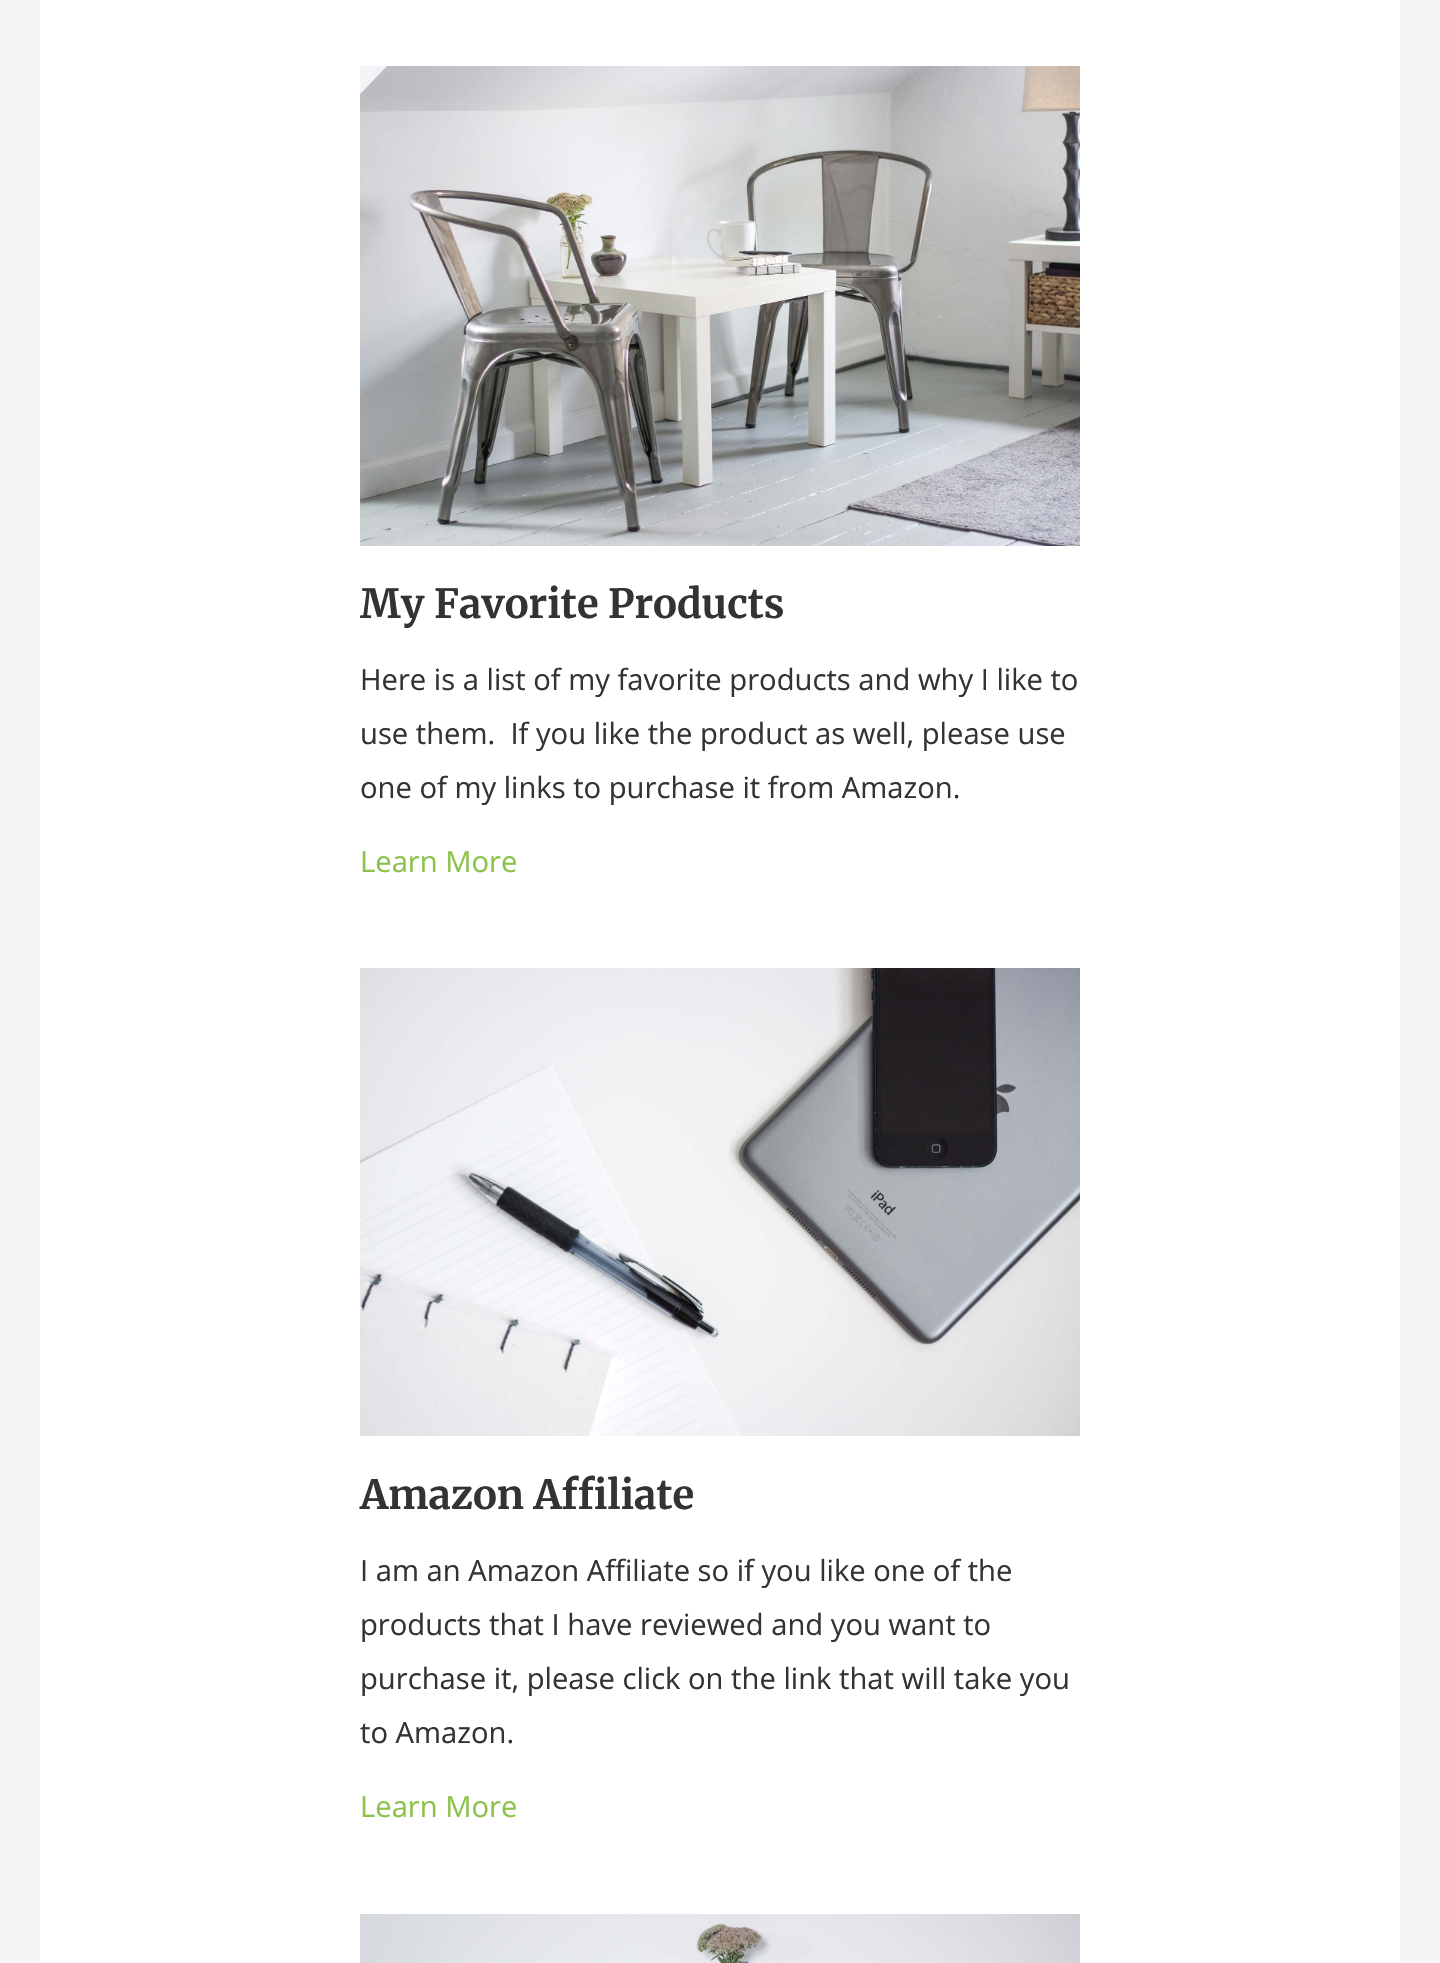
void draw(SkCanvas* canvas) {
    SkPaint paint;
    paint.setAntiAlias(true);
    auto face = [&](const char* family, int weight, float size, bool italic = false) {
        SkFontStyle style(weight, SkFontStyle::kNormal_Width,
            italic ? SkFontStyle::kItalic_Slant : SkFontStyle::kUpright_Slant);
        SkFont result(fontMgr->matchFamilyStyle(family, style), size);
        result.setSubpixel(true);
        return result;
    };
    auto write = [&](const char* s, float x, float y, const SkFont& font, SkColor color) {
        SkPaint ink(SkColor4f::FromColor(color));
        ink.setAntiAlias(true);
        canvas->drawString(s, x, y, font, ink);
    };
    auto block = [&](float x, float y, float w, float h, SkColor color) {
        SkPaint ink(SkColor4f::FromColor(color));
        ink.setAntiAlias(true);
        canvas->drawRect(SkRect::MakeXYWH(x, y, w, h), ink);
    };
    auto paste = [&](const char* path, float x, float y, float w, float h) {
        auto image = SkImages::DeferredFromEncodedData(SkData::MakeFromFileName(path));
        canvas->drawImageRect(image, SkRect::MakeXYWH(x, y, w, h), SkSamplingOptions());
    };
    canvas->clear(SkColorSetRGB(245, 245, 245));
    block(40, 0, 1360, 1963, SK_ColorWHITE);
    paste("pic1.png", 360, 66, 720, 480);
    auto kFont1 = face("Merriweather", 300, 40);
    write("My Favorite Products", 360, 618, kFont1, SkColorSetRGB(51, 51, 51));
    auto kFont2 = face("Open Sans", 400, 29.2f);
    write("Here is a list of my favorite products and why I like to", 360, 690, kFont2, SkColorSetRGB(51, 51, 51));
    write("use them.  If you like the product as well, please use", 360, 744, kFont2, SkColorSetRGB(51, 51, 51));
    write("one of my links to purchase it from Amazon.", 360, 798, kFont2, SkColorSetRGB(51, 51, 51));
    write("Learn More", 360, 872, kFont2, SkColorSetRGB(139, 195, 74));
    paste("pic2.png", 360, 968, 720, 468);
    write("Amazon Affiliate", 360, 1509, kFont1, SkColorSetRGB(51, 51, 51));
    write("I am an Amazon Affiliate so if you like one of the", 360, 1581, kFont2, SkColorSetRGB(51, 51, 51));
    write("products that I have reviewed and you want to", 360, 1635, kFont2, SkColorSetRGB(51, 51, 51));
    write("purchase it, please click on the link that will take you", 360, 1689, kFont2, SkColorSetRGB(51, 51, 51));
    write("to Amazon.", 360, 1743, kFont2, SkColorSetRGB(51, 51, 51));
    write("Learn More", 360, 1817, kFont2, SkColorSetRGB(139, 195, 74));
    paste("pic3.png", 360, 1914, 720, 49);
}
